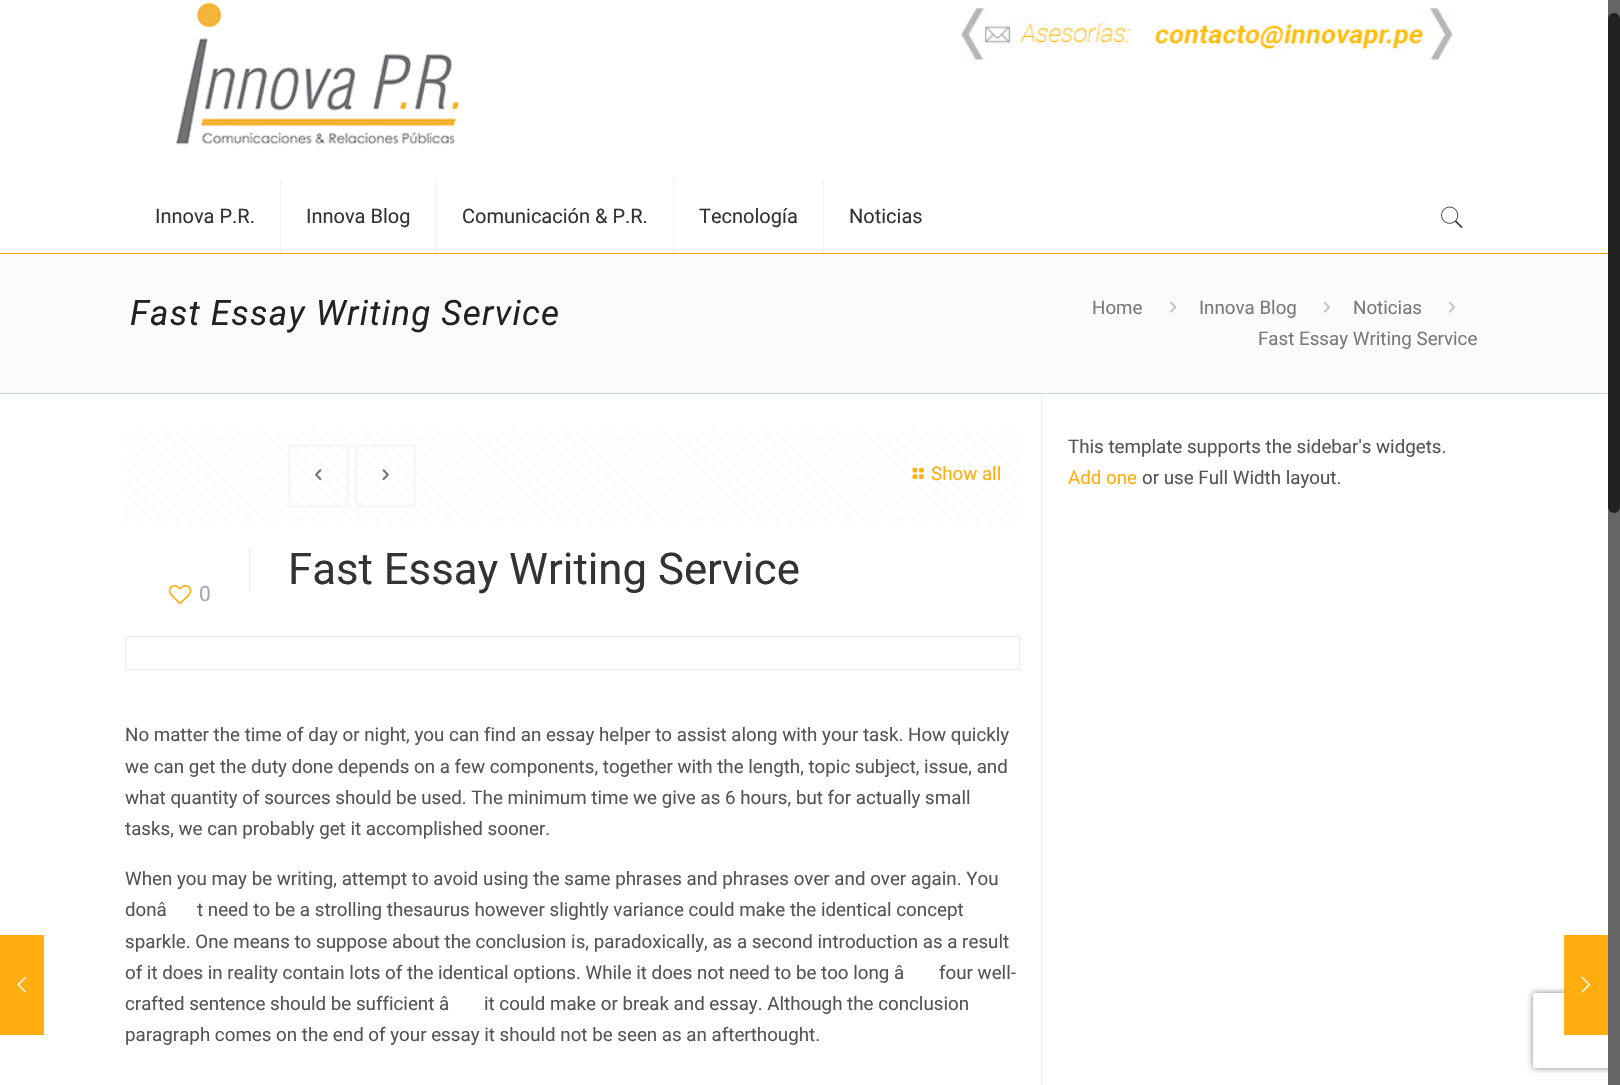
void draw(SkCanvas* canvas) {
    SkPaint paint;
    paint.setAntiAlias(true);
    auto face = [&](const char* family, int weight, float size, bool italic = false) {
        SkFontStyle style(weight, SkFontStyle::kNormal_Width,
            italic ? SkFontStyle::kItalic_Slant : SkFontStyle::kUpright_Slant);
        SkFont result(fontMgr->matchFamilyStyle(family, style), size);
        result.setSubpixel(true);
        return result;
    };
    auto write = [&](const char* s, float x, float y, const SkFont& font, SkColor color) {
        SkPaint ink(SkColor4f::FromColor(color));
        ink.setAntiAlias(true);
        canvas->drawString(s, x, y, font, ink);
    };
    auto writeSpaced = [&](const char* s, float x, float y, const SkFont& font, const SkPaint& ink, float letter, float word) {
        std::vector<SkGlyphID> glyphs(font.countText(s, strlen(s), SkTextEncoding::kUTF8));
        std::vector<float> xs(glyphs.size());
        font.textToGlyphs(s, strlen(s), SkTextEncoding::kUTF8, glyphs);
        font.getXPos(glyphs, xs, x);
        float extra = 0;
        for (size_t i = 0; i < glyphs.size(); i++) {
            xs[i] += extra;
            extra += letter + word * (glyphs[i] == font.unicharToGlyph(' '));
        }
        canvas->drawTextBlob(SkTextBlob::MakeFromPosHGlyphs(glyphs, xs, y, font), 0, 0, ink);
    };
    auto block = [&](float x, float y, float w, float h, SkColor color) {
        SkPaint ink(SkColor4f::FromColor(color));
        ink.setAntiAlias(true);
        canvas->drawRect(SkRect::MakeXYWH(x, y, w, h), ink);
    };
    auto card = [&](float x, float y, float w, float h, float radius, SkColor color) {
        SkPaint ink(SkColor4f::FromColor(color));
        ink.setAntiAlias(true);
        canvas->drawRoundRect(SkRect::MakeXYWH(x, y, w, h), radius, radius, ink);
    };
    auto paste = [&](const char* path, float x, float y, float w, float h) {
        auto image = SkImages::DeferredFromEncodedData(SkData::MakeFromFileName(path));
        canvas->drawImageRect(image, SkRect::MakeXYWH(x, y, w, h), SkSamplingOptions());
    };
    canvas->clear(SK_ColorWHITE);
    block(0, 935, 44, 100, SkColorSetRGB(255, 173, 15));
    paste("pic1.png", 17, 976, 10, 17);
    block(823, 179, 1, 75, SkColorSetRGB(242, 242, 242));
    block(673, 179, 1, 75, SkColorSetRGB(242, 242, 242));
    block(436, 179, 1, 75, SkColorSetRGB(242, 242, 242));
    block(280, 179, 1, 75, SkColorSetRGB(242, 242, 242));
    block(0, 253, 1608, 1, SkColorSetRGB(244, 166, 0));
    block(823, 253, 1, 1, SkColorSetRGB(232, 158, 0));
    block(673, 253, 1, 1, SkColorSetRGB(232, 158, 0));
    block(436, 253, 1, 1, SkColorSetRGB(232, 158, 0));
    block(280, 253, 1, 1, SkColorSetRGB(232, 158, 0));
    paste("pic2.png", 176, 2, 283, 143);
    paste("pic3.png", 961, 8, 492, 55);
    auto kFont1 = face("Roboto", 400, 20);
    write("Innova P.R.", 155, 223, kFont1, SkColorSetRGB(51, 51, 51));
    write("Innova Blog", 306, 223, kFont1, SkColorSetRGB(51, 51, 51));
    write("Comunicación & P.R.", 462, 223, kFont1, SkColorSetRGB(51, 51, 51));
    write("Tecnología", 699, 223, kFont1, SkColorSetRGB(51, 51, 51));
    write("Noticias", 849, 223, kFont1, SkColorSetRGB(51, 51, 51));
    paste("pic4.png", 1441, 206, 22, 23);
    block(0, 254, 1608, 139, SkColorSetRGB(251, 251, 252));
    block(0, 393, 1608, 1, SkColorSetRGB(195, 216, 224));
    auto kFont2 = face("Roboto", 400, 35, true);
    paint.setColor(SkColorSetRGB(34, 34, 34));
    writeSpaced("Fast Essay Writing Service", 130, 325, kFont2, paint, 1.25f, 0);
    auto kFont3 = face("Roboto", 400, 18.75f);
    write("Home", 1092, 314, kFont3, SkColorSetRGB(121, 121, 121));
    paste("pic5.png", 1170, 301, 7, 12);
    write("Innova Blog", 1199, 314, kFont3, SkColorSetRGB(121, 121, 121));
    paste("pic6.png", 1323, 301, 7, 12);
    write("Noticias", 1353, 314, kFont3, SkColorSetRGB(121, 121, 121));
    paste("pic6.png", 1448, 301, 7, 12);
    write("Fast Essay Writing Service", 1258, 345, kFont3, SkColorSetRGB(121, 121, 121));
    paste("pic7.png", 125, 431, 895, 91);
    paint.setStyle(SkPaint::kStroke_Style);
    paint.setStrokeWidth(3);
    paint.setColor(SkColorSetRGB(247, 247, 247));
    canvas->drawRoundRect(SkRect::MakeXYWH(289.5f, 445.5f, 58, 61), 2.5f, 2.5f, paint);
    paste("pic8.png", 315, 469, 7, 12);
    canvas->drawRoundRect(SkRect::MakeXYWH(356.5f, 445.5f, 58, 61), 2.5f, 2.5f, paint);
    paste("pic9.png", 382, 469, 7, 12);
    paste("pic10.png", 912, 467, 12, 13);
    write("Show all", 931, 480, kFont3, SkColorSetRGB(255, 173, 15));
    paste("pic11.png", 168, 585, 24, 20);
    auto kFont4 = face("Roboto", 400, 21);
    write("0", 199, 601, kFont4, SkColorSetRGB(168, 168, 168));
    block(249, 548, 1, 43, SkColorSetRGB(235, 235, 235));
    auto kFont5 = face("Roboto", 400, 43.75f);
    write("Fast Essay Writing Service", 288, 584, kFont5, SkColorSetRGB(51, 51, 51));
    paint.setStrokeWidth(1);
    paint.setColor(SkColorSetRGB(235, 235, 235));
    canvas->drawRect(SkRect::MakeXYWH(125.5f, 636.5f, 894, 33), paint);
    write("No matter the time of day or night, you can find an essay helper to assist along with your task. How quickly", 125, 741, kFont3, SkColorSetRGB(85, 85, 85));
    write("we can get the duty done depends on a few components, together with the length, topic subject, issue, and", 125, 773, kFont3, SkColorSetRGB(85, 85, 85));
    write("what quantity of sources should be used. The minimum time we give as 6 hours, but for actually small", 125, 804, kFont3, SkColorSetRGB(85, 85, 85));
    write("tasks, we can probably get it accomplished sooner.", 125, 835, kFont3, SkColorSetRGB(85, 85, 85));
    write("When you may be writing, attempt to avoid using the same phrases and phrases over and over again. You", 125, 885, kFont3, SkColorSetRGB(85, 85, 85));
    write("donâ", 125, 916, kFont3, SkColorSetRGB(85, 85, 85));
    write("t need to be a strolling thesaurus however slightly variance could make the identical concept", 197, 916, kFont3, SkColorSetRGB(85, 85, 85));
    write("sparkle. One means to suppose about the conclusion is, paradoxically, as a second introduction as a result", 125, 948, kFont3, SkColorSetRGB(85, 85, 85));
    write("of it does in reality contain lots of the identical options. While it does not need to be too long â", 125, 979, kFont3, SkColorSetRGB(85, 85, 85));
    write("four well-", 939, 979, kFont3, SkColorSetRGB(85, 85, 85));
    write("crafted sentence should be sufficient â", 125, 1010, kFont3, SkColorSetRGB(85, 85, 85));
    write("it could make or break and essay. Although the conclusion", 484, 1010, kFont3, SkColorSetRGB(85, 85, 85));
    write("paragraph comes on the end of your essay it should not be seen as an afterthought.", 125, 1041, kFont3, SkColorSetRGB(85, 85, 85));
    block(1041, 394, 1, 691, SkColorSetRGB(235, 235, 235));
    write("This template supports the sidebar's widgets.", 1068, 453, kFont3, SkColorSetRGB(85, 85, 85));
    write("Add one", 1068, 484, kFont3, SkColorSetRGB(255, 173, 15));
    write("or use Full Width layout.", 1142, 484, kFont3, SkColorSetRGB(85, 85, 85));
    canvas->save();
    canvas->clipPath(SkPathBuilder(SkPathFillType::kEvenOdd).moveTo(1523, 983).lineTo(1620, 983).lineTo(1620, 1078).lineTo(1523, 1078).close().moveTo(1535.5f, 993).lineTo(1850.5f, 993).cubicTo(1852, 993, 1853, 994, 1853, 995.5f).lineTo(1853, 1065.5f).cubicTo(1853, 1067, 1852, 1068, 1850.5f, 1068).lineTo(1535.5f, 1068).cubicTo(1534, 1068, 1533, 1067, 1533, 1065.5f).lineTo(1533, 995.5f).cubicTo(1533, 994, 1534, 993, 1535.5f, 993).close().detach(), true);
    paint.setStyle(SkPaint::kFill_Style);
    paint.setColor(SkColorSetRGB(128, 128, 128));
    paint.setMaskFilter(SkMaskFilter::MakeBlur(kNormal_SkBlurStyle, 3));
    canvas->drawRoundRect(SkRect::MakeXYWH(1533, 993, 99, 75), 2.5f, 2.5f, paint);
    paint.setMaskFilter(nullptr);
    canvas->restore();
    block(1564, 935, 44, 100, SkColorSetRGB(255, 173, 15));
    paste("pic12.png", 1581, 976, 9, 17);
    block(1608, 0, 12, 1085, SkColorSetRGB(102, 102, 102));
    card(1608, 13, 12, 500, 6, SkColorSetRGB(34, 34, 34));
}
